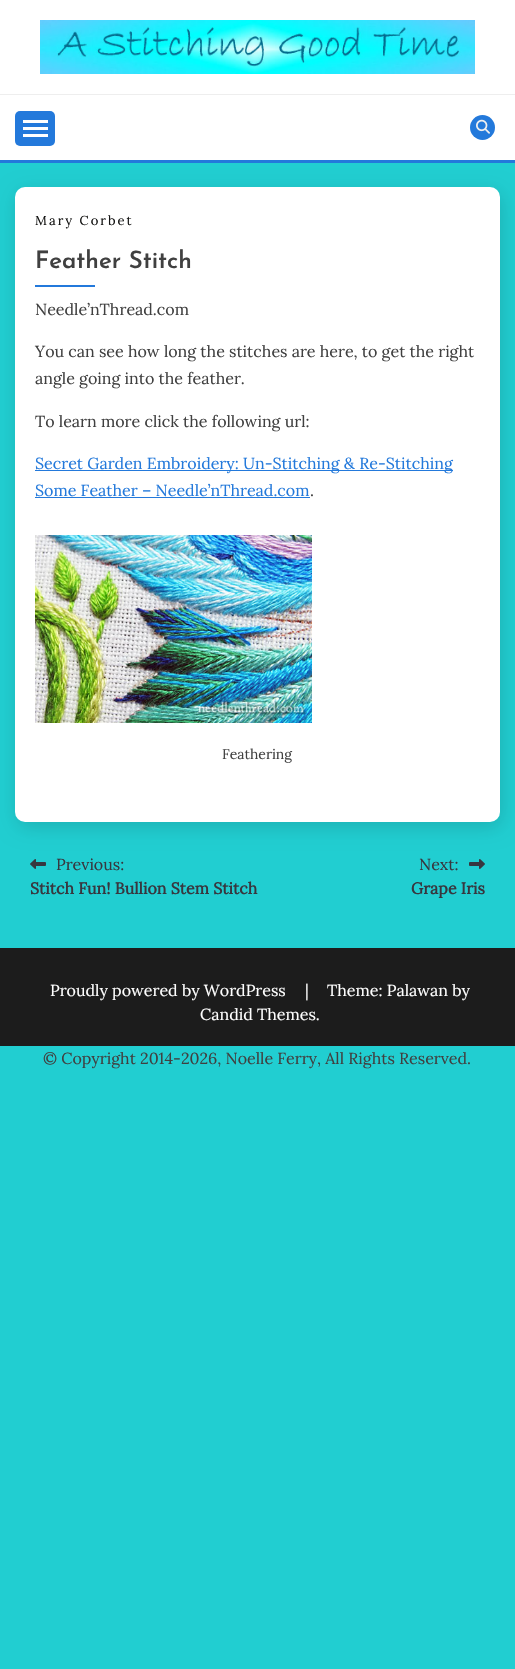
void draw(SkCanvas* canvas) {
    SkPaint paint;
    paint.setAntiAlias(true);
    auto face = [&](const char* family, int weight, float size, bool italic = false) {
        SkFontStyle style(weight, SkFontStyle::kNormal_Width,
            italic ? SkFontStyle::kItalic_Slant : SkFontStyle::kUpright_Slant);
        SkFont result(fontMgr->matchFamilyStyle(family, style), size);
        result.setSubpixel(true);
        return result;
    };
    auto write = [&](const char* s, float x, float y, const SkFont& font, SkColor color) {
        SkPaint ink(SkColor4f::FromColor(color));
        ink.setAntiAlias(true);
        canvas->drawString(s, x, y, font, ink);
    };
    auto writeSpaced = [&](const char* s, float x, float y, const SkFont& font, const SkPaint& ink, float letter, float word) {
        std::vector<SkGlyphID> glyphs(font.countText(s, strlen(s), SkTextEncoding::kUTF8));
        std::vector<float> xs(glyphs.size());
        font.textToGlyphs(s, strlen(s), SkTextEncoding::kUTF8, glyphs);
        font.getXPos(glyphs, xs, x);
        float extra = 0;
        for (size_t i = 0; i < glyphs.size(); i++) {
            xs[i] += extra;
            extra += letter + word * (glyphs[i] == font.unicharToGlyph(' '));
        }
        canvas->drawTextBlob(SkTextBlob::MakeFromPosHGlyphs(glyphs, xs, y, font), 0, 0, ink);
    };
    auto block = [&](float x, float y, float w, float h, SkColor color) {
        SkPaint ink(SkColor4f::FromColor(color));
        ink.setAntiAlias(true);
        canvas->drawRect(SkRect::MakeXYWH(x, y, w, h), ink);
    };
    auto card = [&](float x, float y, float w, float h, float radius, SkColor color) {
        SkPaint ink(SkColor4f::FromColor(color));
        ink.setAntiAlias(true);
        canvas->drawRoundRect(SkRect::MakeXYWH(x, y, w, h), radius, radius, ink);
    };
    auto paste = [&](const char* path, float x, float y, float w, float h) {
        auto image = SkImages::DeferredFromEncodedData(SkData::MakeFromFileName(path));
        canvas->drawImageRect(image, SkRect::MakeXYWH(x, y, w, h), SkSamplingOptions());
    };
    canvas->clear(SkColorSetRGB(33, 206, 209));
    block(0, 0, 515, 160, SK_ColorWHITE);
    paste("pic1.png", 40, 20, 435, 54);
    card(15, 111, 40, 35, 5, SkColorSetRGB(35, 121, 219));
    block(23, 120, 25, 3, SK_ColorWHITE);
    block(23, 127, 25, 3, SK_ColorWHITE);
    block(23, 134, 25, 3, SK_ColorWHITE);
    block(0, 94, 515, 1, SkColorSetRGB(238, 238, 238));
    paint.setColor(SkColorSetRGB(35, 121, 219));
    canvas->drawCircle(482.5f, 127.5f, 12.5f, paint);
    paste("pic2.png", 476, 119, 14, 15);
    paint.setColor(SkColorSetARGB(36, 0, 0, 0));
    paint.setMaskFilter(SkMaskFilter::MakeBlur(kNormal_SkBlurStyle, 10));
    canvas->drawRoundRect(SkRect::MakeXYWH(17, 192, 485, 635), 10, 10, paint);
    paint.setMaskFilter(nullptr);
    block(0, 160, 515, 3, SkColorSetRGB(35, 121, 219));
    card(15, 187, 485, 635, 10, SK_ColorWHITE);
    auto kFont1 = face("Lora", 400, 13);
    paint.setColor(SkColorSetRGB(20, 20, 19));
    writeSpaced("Mary Corbet", 35, 225, kFont1, paint, 2, 0);
    auto kFont2 = face("Josefin Sans", 600, 24);
    write("Feather Stitch", 35, 268, kFont2, SkColorSetRGB(64, 64, 64));
    block(35, 285, 60, 2, SkColorSetRGB(35, 121, 219));
    auto kFont3 = face("Lora", 400, 16);
    write("Needle’nThread.com", 35, 315, kFont3, SkColorSetRGB(64, 64, 64));
    write("You can see how long the stitches are here, to get the right", 35, 357, kFont3, SkColorSetRGB(64, 64, 64));
    write("angle going into the feather.", 35, 384, kFont3, SkColorSetRGB(64, 64, 64));
    write("To learn more click the following url:", 35, 427, kFont3, SkColorSetRGB(64, 64, 64));
    block(35, 470, 418, 1, SkColorSetRGB(35, 121, 219));
    write("Secret Garden Embroidery: Un-Stitching & Re-Stitching", 35, 469, kFont3, SkColorSetRGB(35, 121, 219));
    write("Some Feather – Needle’nThread.com", 35, 496, kFont3, SkColorSetRGB(35, 121, 219));
    block(35, 497, 275, 1, SkColorSetRGB(35, 121, 219));
    write(".", 310, 496, kFont3, SkColorSetRGB(64, 64, 64));
    paste("pic3.png", 35, 535, 277, 188);
    auto kFont4 = face("Lora", 400, 14);
    write("Feathering", 222, 759, kFont4, SkColorSetRGB(64, 64, 64));
    paste("pic4.png", 30, 859, 16, 10);
    write("Previous:", 56, 870, kFont3, SkColorSetRGB(55, 55, 63));
    auto kFont5 = face("Lora", 700, 16);
    write("Stitch Fun! Bullion Stem Stitch", 30, 894, kFont5, SkColorSetRGB(55, 55, 63));
    write("Next:", 419, 870, kFont3, SkColorSetRGB(55, 55, 63));
    paste("pic5.png", 469, 859, 16, 10);
    write("Grape Iris", 411, 894, kFont5, SkColorSetRGB(55, 55, 63));
    block(0, 948, 515, 98, SkColorSetRGB(28, 28, 28));
    write("Proudly powered by WordPress", 50, 996, kFont3, SK_ColorWHITE);
    write("|", 305, 996, kFont3, SK_ColorWHITE);
    write("Theme: Palawan by", 327, 996, kFont3, SK_ColorWHITE);
    write("Candid Themes.", 200, 1020, kFont3, SK_ColorWHITE);
    write("© Copyright 2014-2026, Noelle Ferry, All Rights Reserved.", 43, 1064, kFont3, SkColorSetRGB(64, 64, 64));
}
